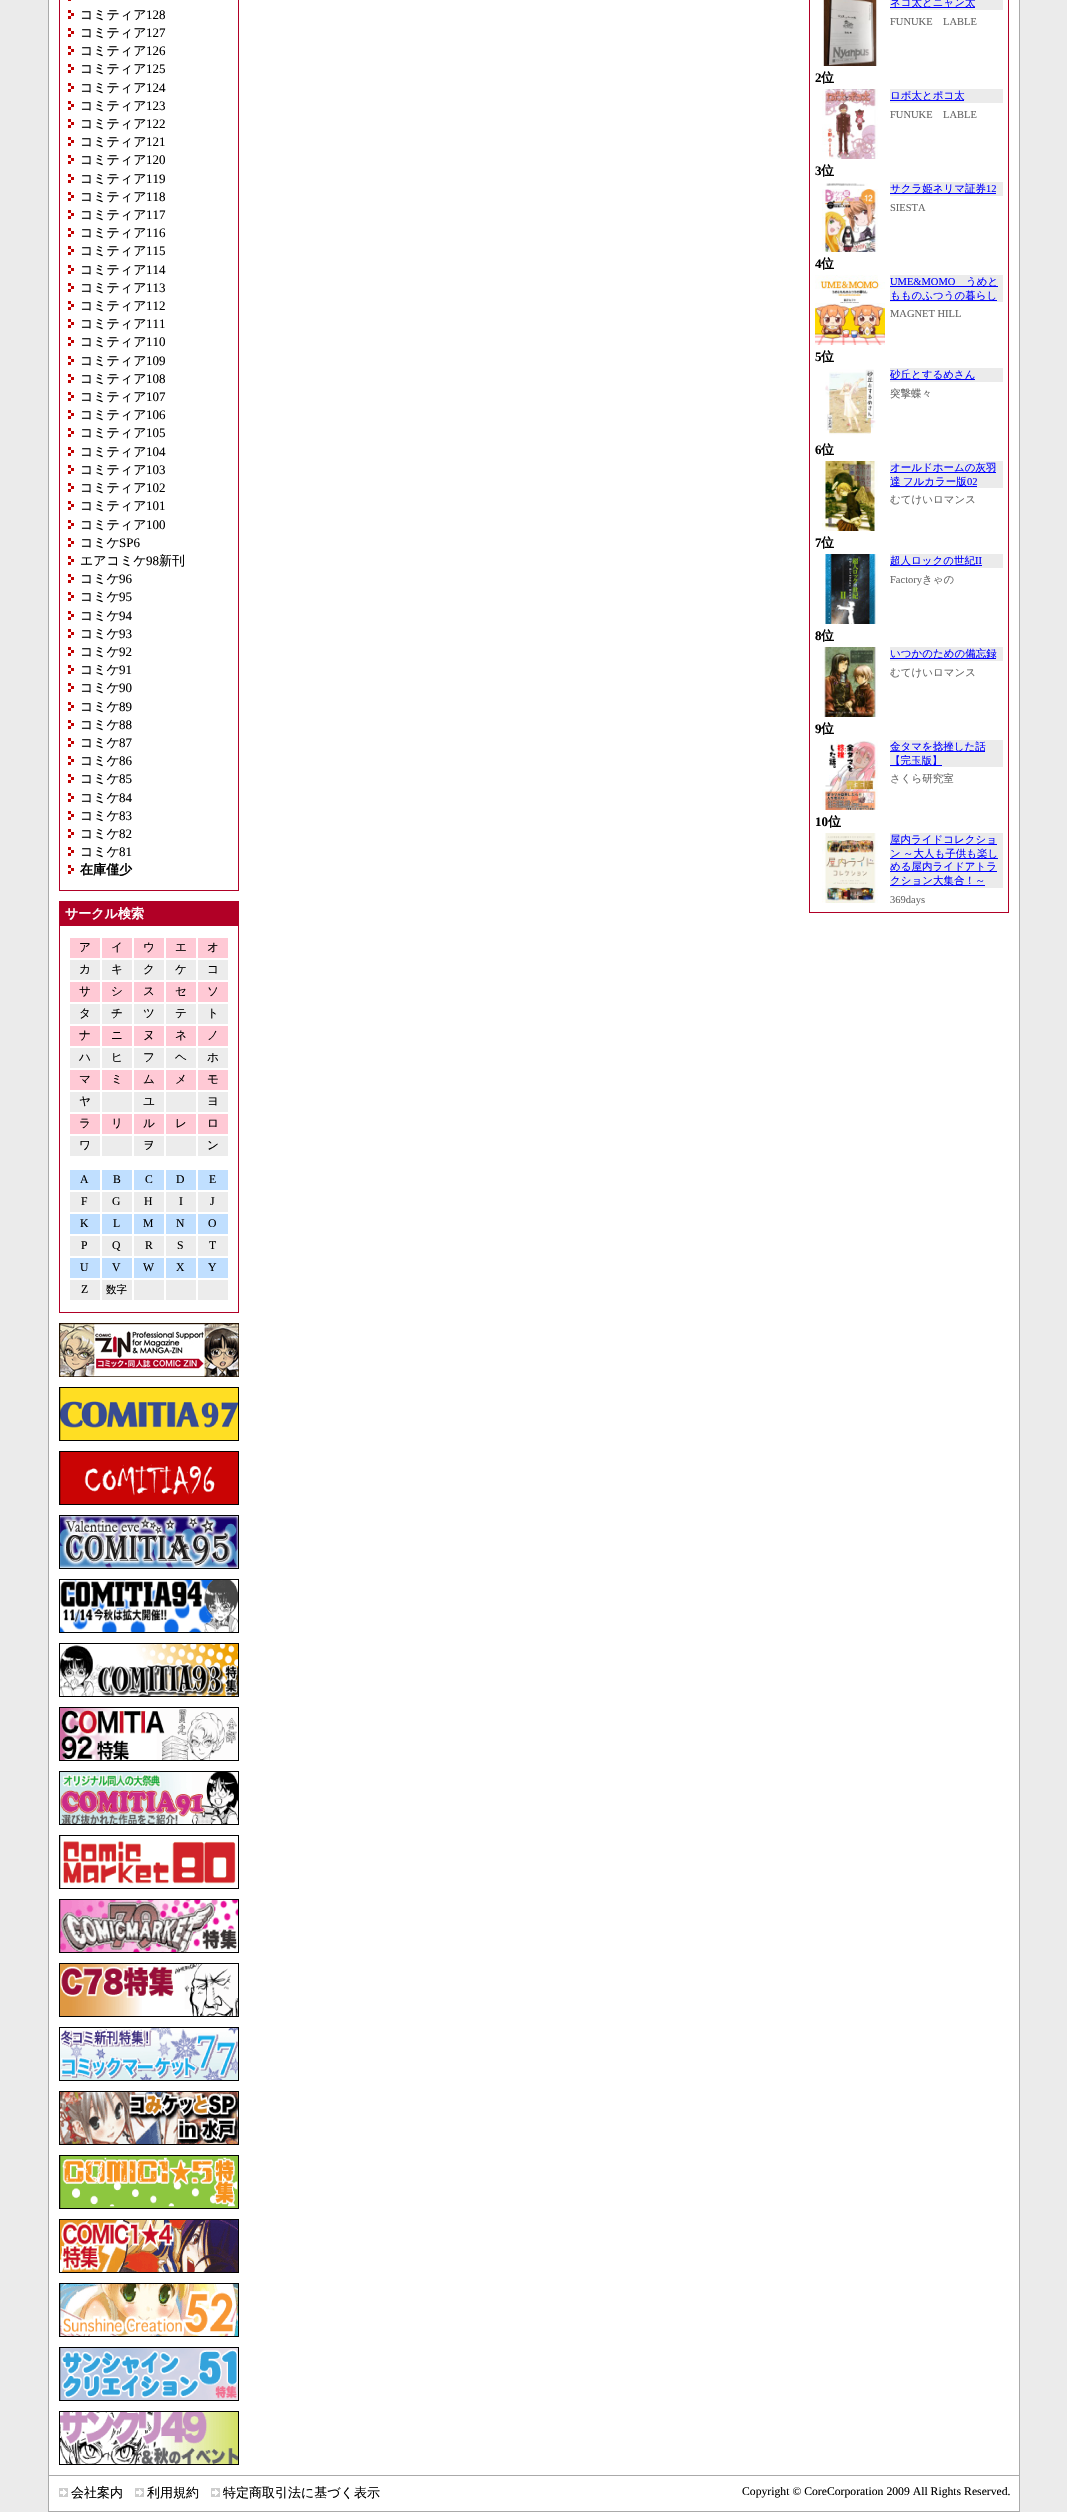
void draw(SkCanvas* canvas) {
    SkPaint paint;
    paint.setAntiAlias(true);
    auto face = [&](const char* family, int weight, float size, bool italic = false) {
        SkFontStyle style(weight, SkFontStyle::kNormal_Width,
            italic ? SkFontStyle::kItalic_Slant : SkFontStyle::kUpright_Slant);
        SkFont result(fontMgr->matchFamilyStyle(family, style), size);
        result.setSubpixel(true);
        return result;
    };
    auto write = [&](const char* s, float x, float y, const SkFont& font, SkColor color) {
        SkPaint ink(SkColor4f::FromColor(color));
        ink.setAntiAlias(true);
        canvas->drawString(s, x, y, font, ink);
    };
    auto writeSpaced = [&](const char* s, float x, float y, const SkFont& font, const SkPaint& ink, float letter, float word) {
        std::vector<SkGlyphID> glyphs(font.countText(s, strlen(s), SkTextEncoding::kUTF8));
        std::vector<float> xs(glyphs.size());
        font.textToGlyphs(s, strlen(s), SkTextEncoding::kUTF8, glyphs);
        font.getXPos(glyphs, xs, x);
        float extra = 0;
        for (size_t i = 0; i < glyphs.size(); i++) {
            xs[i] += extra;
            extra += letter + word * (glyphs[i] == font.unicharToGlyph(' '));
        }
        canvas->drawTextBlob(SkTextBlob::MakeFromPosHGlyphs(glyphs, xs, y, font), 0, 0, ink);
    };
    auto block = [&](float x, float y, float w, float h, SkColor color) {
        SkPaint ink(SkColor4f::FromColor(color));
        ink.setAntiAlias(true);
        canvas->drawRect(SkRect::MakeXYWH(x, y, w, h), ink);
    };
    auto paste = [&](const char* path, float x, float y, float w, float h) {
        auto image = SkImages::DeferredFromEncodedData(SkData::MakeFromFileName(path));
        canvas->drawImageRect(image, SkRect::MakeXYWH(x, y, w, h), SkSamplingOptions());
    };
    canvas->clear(SkColorSetRGB(235, 235, 235));
    block(49, 0, 970, 2511, SK_ColorWHITE);
    block(1019, 0, 1, 2475, SkColorSetRGB(170, 170, 170));
    block(48, 0, 1, 2475, SkColorSetRGB(170, 170, 170));
    paint.setStyle(SkPaint::kStroke_Style);
    paint.setStrokeWidth(1);
    paint.setColor(SkColorSetRGB(177, 0, 38));
    canvas->drawRect(SkRect::MakeXYWH(59.5f, -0.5f, 179, 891), paint);
    block(68, 0, 3, 1, SkColorSetRGB(194, 1, 1));
    paste("pic1.png", 68, 10, 6, 9);
    auto kFont1 = face("WenQuanYi Zen Hei", 500, 13);
    write("コミティア", 80, 19, kFont1, SK_ColorBLACK);
    auto kFont2 = face("Liberation Serif", 400, 13);
    write("128", 146, 19, kFont2, SK_ColorBLACK);
    paste("pic1.png", 68, 28, 6, 9);
    write("コミティア", 80, 37, kFont1, SK_ColorBLACK);
    write("127", 146, 37, kFont2, SK_ColorBLACK);
    paste("pic1.png", 68, 46, 6, 9);
    write("コミティア", 80, 55, kFont1, SK_ColorBLACK);
    write("126", 146, 55, kFont2, SK_ColorBLACK);
    paste("pic1.png", 68, 64, 6, 9);
    write("コミティア", 80, 73, kFont1, SK_ColorBLACK);
    write("125", 146, 73, kFont2, SK_ColorBLACK);
    paste("pic1.png", 68, 83, 6, 9);
    write("コミティア", 80, 92, kFont1, SK_ColorBLACK);
    write("124", 146, 92, kFont2, SK_ColorBLACK);
    paste("pic1.png", 68, 101, 6, 9);
    write("コミティア", 80, 110, kFont1, SK_ColorBLACK);
    write("123", 146, 110, kFont2, SK_ColorBLACK);
    paste("pic1.png", 68, 119, 6, 9);
    write("コミティア", 80, 128, kFont1, SK_ColorBLACK);
    write("122", 146, 128, kFont2, SK_ColorBLACK);
    paste("pic1.png", 68, 137, 6, 9);
    write("コミティア", 80, 146, kFont1, SK_ColorBLACK);
    write("121", 146, 146, kFont2, SK_ColorBLACK);
    paste("pic1.png", 68, 155, 6, 9);
    write("コミティア", 80, 164, kFont1, SK_ColorBLACK);
    write("120", 146, 164, kFont2, SK_ColorBLACK);
    paste("pic1.png", 68, 174, 6, 9);
    write("コミティア", 80, 183, kFont1, SK_ColorBLACK);
    write("119", 146, 183, kFont2, SK_ColorBLACK);
    paste("pic1.png", 68, 192, 6, 9);
    write("コミティア", 80, 201, kFont1, SK_ColorBLACK);
    write("118", 146, 201, kFont2, SK_ColorBLACK);
    paste("pic1.png", 68, 210, 6, 9);
    write("コミティア", 80, 219, kFont1, SK_ColorBLACK);
    write("117", 146, 219, kFont2, SK_ColorBLACK);
    paste("pic1.png", 68, 228, 6, 9);
    write("コミティア", 80, 237, kFont1, SK_ColorBLACK);
    write("116", 146, 237, kFont2, SK_ColorBLACK);
    paste("pic1.png", 68, 246, 6, 9);
    write("コミティア", 80, 255, kFont1, SK_ColorBLACK);
    write("115", 146, 255, kFont2, SK_ColorBLACK);
    paste("pic1.png", 68, 265, 6, 9);
    write("コミティア", 80, 274, kFont1, SK_ColorBLACK);
    write("114", 146, 274, kFont2, SK_ColorBLACK);
    paste("pic1.png", 68, 283, 6, 9);
    write("コミティア", 80, 292, kFont1, SK_ColorBLACK);
    write("113", 146, 292, kFont2, SK_ColorBLACK);
    paste("pic1.png", 68, 301, 6, 9);
    write("コミティア", 80, 310, kFont1, SK_ColorBLACK);
    write("112", 146, 310, kFont2, SK_ColorBLACK);
    paste("pic1.png", 68, 319, 6, 9);
    write("コミティア", 80, 328, kFont1, SK_ColorBLACK);
    write("111", 146, 328, kFont2, SK_ColorBLACK);
    paste("pic1.png", 68, 337, 6, 9);
    write("コミティア", 80, 346, kFont1, SK_ColorBLACK);
    write("110", 146, 346, kFont2, SK_ColorBLACK);
    paste("pic1.png", 68, 356, 6, 9);
    write("コミティア", 80, 365, kFont1, SK_ColorBLACK);
    write("109", 146, 365, kFont2, SK_ColorBLACK);
    paste("pic1.png", 68, 374, 6, 9);
    write("コミティア", 80, 383, kFont1, SK_ColorBLACK);
    write("108", 146, 383, kFont2, SK_ColorBLACK);
    paste("pic1.png", 68, 392, 6, 9);
    write("コミティア", 80, 401, kFont1, SK_ColorBLACK);
    write("107", 146, 401, kFont2, SK_ColorBLACK);
    paste("pic1.png", 68, 410, 6, 9);
    write("コミティア", 80, 419, kFont1, SK_ColorBLACK);
    write("106", 146, 419, kFont2, SK_ColorBLACK);
    paste("pic1.png", 68, 428, 6, 9);
    write("コミティア", 80, 437, kFont1, SK_ColorBLACK);
    write("105", 146, 437, kFont2, SK_ColorBLACK);
    paste("pic1.png", 68, 447, 6, 9);
    write("コミティア", 80, 456, kFont1, SK_ColorBLACK);
    write("104", 146, 456, kFont2, SK_ColorBLACK);
    paste("pic1.png", 68, 465, 6, 9);
    write("コミティア", 80, 474, kFont1, SK_ColorBLACK);
    write("103", 146, 474, kFont2, SK_ColorBLACK);
    paste("pic1.png", 68, 483, 6, 9);
    write("コミティア", 80, 492, kFont1, SK_ColorBLACK);
    write("102", 146, 492, kFont2, SK_ColorBLACK);
    paste("pic1.png", 68, 501, 6, 9);
    write("コミティア", 80, 510, kFont1, SK_ColorBLACK);
    write("101", 146, 510, kFont2, SK_ColorBLACK);
    paste("pic1.png", 68, 520, 6, 9);
    write("コミティア", 80, 529, kFont1, SK_ColorBLACK);
    write("100", 146, 529, kFont2, SK_ColorBLACK);
    paste("pic1.png", 68, 538, 6, 9);
    write("コミケ", 80, 547, kFont1, SK_ColorBLACK);
    write("SP6", 119, 547, kFont2, SK_ColorBLACK);
    paste("pic1.png", 68, 556, 6, 9);
    write("エアコミケ", 80, 565, kFont1, SK_ColorBLACK);
    write("98", 146, 565, kFont2, SK_ColorBLACK);
    write("新刊", 159, 565, kFont1, SK_ColorBLACK);
    paste("pic1.png", 68, 574, 6, 9);
    write("コミケ", 80, 583, kFont1, SK_ColorBLACK);
    write("96", 119, 583, kFont2, SK_ColorBLACK);
    paste("pic1.png", 68, 592, 6, 9);
    write("コミケ", 80, 601, kFont1, SK_ColorBLACK);
    write("95", 119, 601, kFont2, SK_ColorBLACK);
    paste("pic1.png", 68, 611, 6, 9);
    write("コミケ", 80, 620, kFont1, SK_ColorBLACK);
    write("94", 119, 620, kFont2, SK_ColorBLACK);
    paste("pic1.png", 68, 629, 6, 9);
    write("コミケ", 80, 638, kFont1, SK_ColorBLACK);
    write("93", 119, 638, kFont2, SK_ColorBLACK);
    paste("pic1.png", 68, 647, 6, 9);
    write("コミケ", 80, 656, kFont1, SK_ColorBLACK);
    write("92", 119, 656, kFont2, SK_ColorBLACK);
    paste("pic1.png", 68, 665, 6, 9);
    write("コミケ", 80, 674, kFont1, SK_ColorBLACK);
    write("91", 119, 674, kFont2, SK_ColorBLACK);
    paste("pic1.png", 68, 683, 6, 9);
    write("コミケ", 80, 692, kFont1, SK_ColorBLACK);
    write("90", 119, 692, kFont2, SK_ColorBLACK);
    paste("pic1.png", 68, 702, 6, 9);
    write("コミケ", 80, 711, kFont1, SK_ColorBLACK);
    write("89", 119, 711, kFont2, SK_ColorBLACK);
    paste("pic1.png", 68, 720, 6, 9);
    write("コミケ", 80, 729, kFont1, SK_ColorBLACK);
    write("88", 119, 729, kFont2, SK_ColorBLACK);
    paste("pic1.png", 68, 738, 6, 9);
    write("コミケ", 80, 747, kFont1, SK_ColorBLACK);
    write("87", 119, 747, kFont2, SK_ColorBLACK);
    paste("pic1.png", 68, 756, 6, 9);
    write("コミケ", 80, 765, kFont1, SK_ColorBLACK);
    write("86", 119, 765, kFont2, SK_ColorBLACK);
    paste("pic1.png", 68, 774, 6, 9);
    write("コミケ", 80, 783, kFont1, SK_ColorBLACK);
    write("85", 119, 783, kFont2, SK_ColorBLACK);
    paste("pic1.png", 68, 793, 6, 9);
    write("コミケ", 80, 802, kFont1, SK_ColorBLACK);
    write("84", 119, 802, kFont2, SK_ColorBLACK);
    paste("pic1.png", 68, 811, 6, 9);
    write("コミケ", 80, 820, kFont1, SK_ColorBLACK);
    write("83", 119, 820, kFont2, SK_ColorBLACK);
    paste("pic1.png", 68, 829, 6, 9);
    write("コミケ", 80, 838, kFont1, SK_ColorBLACK);
    write("82", 119, 838, kFont2, SK_ColorBLACK);
    paste("pic1.png", 68, 847, 6, 9);
    write("コミケ", 80, 856, kFont1, SK_ColorBLACK);
    write("81", 119, 856, kFont2, SK_ColorBLACK);
    paste("pic1.png", 68, 865, 6, 9);
    auto kFont3 = face("WenQuanYi Zen Hei", 700, 13);
    write("在庫僅少", 80, 874, kFont3, SK_ColorBLACK);
    canvas->drawRect(SkRect::MakeXYWH(59.5f, 901.5f, 179, 411), paint);
    block(60, 902, 178, 24, SkColorSetRGB(177, 0, 38));
    write("サークル検索", 65, 918, kFont3, SK_ColorWHITE);
    block(70, 938, 30, 20, SkColorSetRGB(255, 201, 213));
    auto kFont4 = face("WenQuanYi Zen Hei", 500, 11.7f);
    write("ア", 79, 951, kFont4, SK_ColorBLACK);
    block(102, 938, 30, 20, SkColorSetRGB(255, 201, 213));
    write("イ", 111, 951, kFont4, SK_ColorBLACK);
    block(134, 938, 30, 20, SkColorSetRGB(255, 201, 213));
    write("ウ", 143, 951, kFont4, SK_ColorBLACK);
    block(166, 938, 30, 20, SkColorSetRGB(255, 201, 213));
    write("エ", 175, 951, kFont4, SK_ColorBLACK);
    block(198, 938, 30, 20, SkColorSetRGB(255, 201, 213));
    write("オ", 207, 951, kFont4, SK_ColorBLACK);
    block(70, 960, 30, 20, SkColorSetRGB(236, 236, 236));
    write("カ", 79, 973, kFont4, SK_ColorBLACK);
    block(102, 960, 30, 20, SkColorSetRGB(236, 236, 236));
    write("キ", 111, 973, kFont4, SK_ColorBLACK);
    block(134, 960, 30, 20, SkColorSetRGB(236, 236, 236));
    write("ク", 143, 973, kFont4, SK_ColorBLACK);
    block(166, 960, 30, 20, SkColorSetRGB(236, 236, 236));
    write("ケ", 175, 973, kFont4, SK_ColorBLACK);
    block(198, 960, 30, 20, SkColorSetRGB(236, 236, 236));
    write("コ", 207, 973, kFont4, SK_ColorBLACK);
    block(70, 982, 30, 20, SkColorSetRGB(255, 201, 213));
    write("サ", 79, 995, kFont4, SK_ColorBLACK);
    block(102, 982, 30, 20, SkColorSetRGB(255, 201, 213));
    write("シ", 111, 995, kFont4, SK_ColorBLACK);
    block(134, 982, 30, 20, SkColorSetRGB(255, 201, 213));
    write("ス", 143, 995, kFont4, SK_ColorBLACK);
    block(166, 982, 30, 20, SkColorSetRGB(255, 201, 213));
    write("セ", 175, 995, kFont4, SK_ColorBLACK);
    block(198, 982, 30, 20, SkColorSetRGB(255, 201, 213));
    write("ソ", 207, 995, kFont4, SK_ColorBLACK);
    block(70, 1004, 30, 20, SkColorSetRGB(236, 236, 236));
    write("タ", 79, 1017, kFont4, SK_ColorBLACK);
    block(102, 1004, 30, 20, SkColorSetRGB(236, 236, 236));
    write("チ", 111, 1017, kFont4, SK_ColorBLACK);
    block(134, 1004, 30, 20, SkColorSetRGB(236, 236, 236));
    write("ツ", 143, 1017, kFont4, SK_ColorBLACK);
    block(166, 1004, 30, 20, SkColorSetRGB(236, 236, 236));
    write("テ", 175, 1017, kFont4, SK_ColorBLACK);
    block(198, 1004, 30, 20, SkColorSetRGB(236, 236, 236));
    write("ト", 207, 1017, kFont4, SK_ColorBLACK);
    block(70, 1026, 30, 20, SkColorSetRGB(255, 201, 213));
    write("ナ", 79, 1039, kFont4, SK_ColorBLACK);
    block(102, 1026, 30, 20, SkColorSetRGB(255, 201, 213));
    write("ニ", 111, 1039, kFont4, SK_ColorBLACK);
    block(134, 1026, 30, 20, SkColorSetRGB(255, 201, 213));
    write("ヌ", 143, 1039, kFont4, SK_ColorBLACK);
    block(166, 1026, 30, 20, SkColorSetRGB(255, 201, 213));
    write("ネ", 175, 1039, kFont4, SK_ColorBLACK);
    block(198, 1026, 30, 20, SkColorSetRGB(255, 201, 213));
    write("ノ", 207, 1039, kFont4, SK_ColorBLACK);
    block(70, 1048, 30, 20, SkColorSetRGB(236, 236, 236));
    write("ハ", 79, 1061, kFont4, SK_ColorBLACK);
    block(102, 1048, 30, 20, SkColorSetRGB(236, 236, 236));
    write("ヒ", 111, 1061, kFont4, SK_ColorBLACK);
    block(134, 1048, 30, 20, SkColorSetRGB(236, 236, 236));
    write("フ", 143, 1061, kFont4, SK_ColorBLACK);
    block(166, 1048, 30, 20, SkColorSetRGB(236, 236, 236));
    write("ヘ", 175, 1061, kFont4, SK_ColorBLACK);
    block(198, 1048, 30, 20, SkColorSetRGB(236, 236, 236));
    write("ホ", 207, 1061, kFont4, SK_ColorBLACK);
    block(70, 1070, 30, 20, SkColorSetRGB(255, 201, 213));
    write("マ", 79, 1083, kFont4, SK_ColorBLACK);
    block(102, 1070, 30, 20, SkColorSetRGB(255, 201, 213));
    write("ミ", 111, 1083, kFont4, SK_ColorBLACK);
    block(134, 1070, 30, 20, SkColorSetRGB(255, 201, 213));
    write("ム", 143, 1083, kFont4, SK_ColorBLACK);
    block(166, 1070, 30, 20, SkColorSetRGB(255, 201, 213));
    write("メ", 175, 1083, kFont4, SK_ColorBLACK);
    block(198, 1070, 30, 20, SkColorSetRGB(255, 201, 213));
    write("モ", 207, 1083, kFont4, SK_ColorBLACK);
    block(70, 1092, 30, 20, SkColorSetRGB(236, 236, 236));
    write("ヤ", 79, 1105, kFont4, SK_ColorBLACK);
    block(102, 1092, 30, 20, SkColorSetRGB(236, 236, 236));
    block(134, 1092, 30, 20, SkColorSetRGB(236, 236, 236));
    write("ユ", 143, 1105, kFont4, SK_ColorBLACK);
    block(166, 1092, 30, 20, SkColorSetRGB(236, 236, 236));
    block(198, 1092, 30, 20, SkColorSetRGB(236, 236, 236));
    write("ヨ", 207, 1105, kFont4, SK_ColorBLACK);
    block(70, 1114, 30, 20, SkColorSetRGB(255, 201, 213));
    write("ラ", 79, 1127, kFont4, SK_ColorBLACK);
    block(102, 1114, 30, 20, SkColorSetRGB(255, 201, 213));
    write("リ", 111, 1127, kFont4, SK_ColorBLACK);
    block(134, 1114, 30, 20, SkColorSetRGB(255, 201, 213));
    write("ル", 143, 1127, kFont4, SK_ColorBLACK);
    block(166, 1114, 30, 20, SkColorSetRGB(255, 201, 213));
    write("レ", 175, 1127, kFont4, SK_ColorBLACK);
    block(198, 1114, 30, 20, SkColorSetRGB(255, 201, 213));
    write("ロ", 207, 1127, kFont4, SK_ColorBLACK);
    block(70, 1136, 30, 20, SkColorSetRGB(236, 236, 236));
    write("ワ", 79, 1149, kFont4, SK_ColorBLACK);
    block(102, 1136, 30, 20, SkColorSetRGB(236, 236, 236));
    block(134, 1136, 30, 20, SkColorSetRGB(236, 236, 236));
    write("ヲ", 143, 1149, kFont4, SK_ColorBLACK);
    block(166, 1136, 30, 20, SkColorSetRGB(236, 236, 236));
    block(198, 1136, 30, 20, SkColorSetRGB(236, 236, 236));
    write("ン", 207, 1149, kFont4, SK_ColorBLACK);
    block(70, 1170, 30, 20, SkColorSetRGB(192, 223, 255));
    auto kFont5 = face("Liberation Serif", 400, 11.7f);
    write("A", 80, 1183, kFont5, SK_ColorBLACK);
    block(102, 1170, 30, 20, SkColorSetRGB(192, 223, 255));
    write("B", 113, 1183, kFont5, SK_ColorBLACK);
    block(134, 1170, 30, 20, SkColorSetRGB(192, 223, 255));
    write("C", 145, 1183, kFont5, SK_ColorBLACK);
    block(166, 1170, 30, 20, SkColorSetRGB(192, 223, 255));
    write("D", 176, 1183, kFont5, SK_ColorBLACK);
    block(198, 1170, 30, 20, SkColorSetRGB(192, 223, 255));
    write("E", 209, 1183, kFont5, SK_ColorBLACK);
    block(70, 1192, 30, 20, SkColorSetRGB(236, 236, 236));
    write("F", 81, 1205, kFont5, SK_ColorBLACK);
    block(102, 1192, 30, 20, SkColorSetRGB(236, 236, 236));
    write("G", 112, 1205, kFont5, SK_ColorBLACK);
    block(134, 1192, 30, 20, SkColorSetRGB(236, 236, 236));
    write("H", 144, 1205, kFont5, SK_ColorBLACK);
    block(166, 1192, 30, 20, SkColorSetRGB(236, 236, 236));
    write("I", 179, 1205, kFont5, SK_ColorBLACK);
    block(198, 1192, 30, 20, SkColorSetRGB(236, 236, 236));
    write("J", 210, 1205, kFont5, SK_ColorBLACK);
    block(70, 1214, 30, 20, SkColorSetRGB(192, 223, 255));
    write("K", 80, 1227, kFont5, SK_ColorBLACK);
    block(102, 1214, 30, 20, SkColorSetRGB(192, 223, 255));
    write("L", 113, 1227, kFont5, SK_ColorBLACK);
    block(134, 1214, 30, 20, SkColorSetRGB(192, 223, 255));
    write("M", 143, 1227, kFont5, SK_ColorBLACK);
    block(166, 1214, 30, 20, SkColorSetRGB(192, 223, 255));
    write("N", 176, 1227, kFont5, SK_ColorBLACK);
    block(198, 1214, 30, 20, SkColorSetRGB(192, 223, 255));
    write("O", 208, 1227, kFont5, SK_ColorBLACK);
    block(70, 1236, 30, 20, SkColorSetRGB(236, 236, 236));
    write("P", 81, 1249, kFont5, SK_ColorBLACK);
    block(102, 1236, 30, 20, SkColorSetRGB(236, 236, 236));
    write("Q", 112, 1249, kFont5, SK_ColorBLACK);
    block(134, 1236, 30, 20, SkColorSetRGB(236, 236, 236));
    write("R", 145, 1249, kFont5, SK_ColorBLACK);
    block(166, 1236, 30, 20, SkColorSetRGB(236, 236, 236));
    write("S", 177, 1249, kFont5, SK_ColorBLACK);
    block(198, 1236, 30, 20, SkColorSetRGB(236, 236, 236));
    write("T", 209, 1249, kFont5, SK_ColorBLACK);
    block(70, 1258, 30, 20, SkColorSetRGB(192, 223, 255));
    write("U", 80, 1271, kFont5, SK_ColorBLACK);
    block(102, 1258, 30, 20, SkColorSetRGB(192, 223, 255));
    write("V", 112, 1271, kFont5, SK_ColorBLACK);
    block(134, 1258, 30, 20, SkColorSetRGB(192, 223, 255));
    write("W", 143, 1271, kFont5, SK_ColorBLACK);
    block(166, 1258, 30, 20, SkColorSetRGB(192, 223, 255));
    write("X", 176, 1271, kFont5, SK_ColorBLACK);
    block(198, 1258, 30, 20, SkColorSetRGB(192, 223, 255));
    write("Y", 208, 1271, kFont5, SK_ColorBLACK);
    block(70, 1280, 30, 20, SkColorSetRGB(236, 236, 236));
    write("Z", 81, 1293, kFont5, SK_ColorBLACK);
    block(102, 1280, 30, 20, SkColorSetRGB(236, 236, 236));
    auto kFont6 = face("WenQuanYi Zen Hei", 500, 10.5f);
    write("数字", 106, 1293, kFont6, SK_ColorBLACK);
    block(134, 1280, 30, 20, SkColorSetRGB(236, 236, 236));
    block(166, 1280, 30, 20, SkColorSetRGB(236, 236, 236));
    block(198, 1280, 30, 20, SkColorSetRGB(236, 236, 236));
    paste("pic2.png", 59, 1323, 180, 54);
    paste("pic3.png", 59, 1387, 180, 54);
    paste("pic4.png", 59, 1451, 180, 54);
    paste("pic5.png", 59, 1515, 180, 54);
    paste("pic6.png", 59, 1579, 180, 54);
    paste("pic7.png", 59, 1643, 180, 54);
    paste("pic8.png", 59, 1707, 180, 54);
    paste("pic9.png", 59, 1771, 180, 54);
    paste("pic10.png", 59, 1835, 180, 54);
    paste("pic11.png", 59, 1899, 180, 54);
    paste("pic12.png", 59, 1963, 180, 54);
    paste("pic13.png", 59, 2027, 180, 54);
    paste("pic14.png", 59, 2091, 180, 54);
    paste("pic15.png", 59, 2155, 180, 54);
    paste("pic16.png", 59, 2219, 180, 54);
    paste("pic17.png", 59, 2283, 180, 54);
    paste("pic18.png", 59, 2347, 180, 54);
    paste("pic19.png", 59, 2411, 180, 54);
    canvas->drawRect(SkRect::MakeXYWH(809.5f, -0.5f, 199, 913), paint);
    paste("pic20.png", 822, 0, 56, 66);
    block(890, 0, 113, 10, SkColorSetRGB(235, 235, 235));
    block(890, 7, 85, 1, SkColorSetRGB(0, 0, 255));
    write("ネコ太とニャン太", 890, 6, kFont6, SkColorSetRGB(0, 0, 255));
    auto kFont7 = face("Liberation Serif", 400, 10.5f);
    write("FUNUKE", 890, 25, kFont7, SkColorSetRGB(102, 102, 102));
    write("LABLE", 943, 25, kFont7, SkColorSetRGB(102, 102, 102));
    auto kFont8 = face("Liberation Serif", 700, 13);
    write("2", 815, 82, kFont8, SK_ColorBLACK);
    write("位", 821, 82, kFont3, SK_ColorBLACK);
    paste("pic21.png", 822, 89, 56, 70);
    block(890, 89, 113, 14, SkColorSetRGB(235, 235, 235));
    block(890, 100, 74, 1, SkColorSetRGB(0, 0, 255));
    write("ロボ太とポコ太", 890, 99, kFont6, SkColorSetRGB(0, 0, 255));
    write("FUNUKE", 890, 118, kFont7, SkColorSetRGB(102, 102, 102));
    write("LABLE", 943, 118, kFont7, SkColorSetRGB(102, 102, 102));
    write("3", 815, 175, kFont8, SK_ColorBLACK);
    write("位", 821, 175, kFont3, SK_ColorBLACK);
    paste("pic22.png", 822, 183, 56, 69);
    block(890, 182, 113, 14, SkColorSetRGB(235, 235, 235));
    block(890, 193, 106, 1, SkColorSetRGB(0, 0, 255));
    write("サクラ姫ネリマ証券", 890, 192, kFont6, SkColorSetRGB(0, 0, 255));
    write("12", 986, 192, kFont7, SkColorSetRGB(0, 0, 255));
    write("SIESTA", 890, 211, kFont7, SkColorSetRGB(102, 102, 102));
    write("4", 815, 268, kFont8, SK_ColorBLACK);
    write("位", 821, 268, kFont3, SK_ColorBLACK);
    paste("pic23.png", 815, 275, 70, 70);
    block(890, 275, 113, 27, SkColorSetRGB(235, 235, 235));
    write("UME&MOMO", 890, 285, kFont7, SkColorSetRGB(0, 0, 255));
    block(890, 286, 108, 1, SkColorSetRGB(0, 0, 255));
    write("うめと", 966, 285, kFont6, SkColorSetRGB(0, 0, 255));
    block(890, 300, 107, 1, SkColorSetRGB(0, 0, 255));
    write("もものふつうの暮らし", 890, 299, kFont6, SkColorSetRGB(0, 0, 255));
    write("MAGNET HILL", 890, 317, kFont7, SkColorSetRGB(102, 102, 102));
    write("5", 815, 361, kFont8, SK_ColorBLACK);
    write("位", 821, 361, kFont3, SK_ColorBLACK);
    paste("pic24.png", 825, 369, 51, 66);
    block(890, 368, 113, 14, SkColorSetRGB(235, 235, 235));
    block(890, 379, 85, 1, SkColorSetRGB(0, 0, 255));
    write("砂丘とするめさん", 890, 378, kFont6, SkColorSetRGB(0, 0, 255));
    write("突撃蝶々", 890, 397, kFont6, SkColorSetRGB(102, 102, 102));
    write("6", 815, 454, kFont8, SK_ColorBLACK);
    write("位", 821, 454, kFont3, SK_ColorBLACK);
    paste("pic25.png", 822, 461, 56, 70);
    block(890, 461, 113, 27, SkColorSetRGB(235, 235, 235));
    block(890, 472, 106, 1, SkColorSetRGB(0, 0, 255));
    write("オールドホームの灰羽", 890, 471, kFont6, SkColorSetRGB(0, 0, 255));
    block(890, 486, 87, 1, SkColorSetRGB(0, 0, 255));
    paint.setStyle(SkPaint::kFill_Style);
    paint.setColor(SkColorSetRGB(0, 0, 255));
    writeSpaced("達 フルカラー版", 890, 485, kFont6, paint, 0, -1);
    write("02", 967, 485, kFont7, SkColorSetRGB(0, 0, 255));
    write("むてけいロマンス", 890, 503, kFont6, SkColorSetRGB(102, 102, 102));
    write("7", 815, 547, kFont8, SK_ColorBLACK);
    write("位", 821, 547, kFont3, SK_ColorBLACK);
    paste("pic26.png", 825, 554, 53, 70);
    block(890, 554, 113, 14, SkColorSetRGB(235, 235, 235));
    block(890, 565, 92, 1, SkColorSetRGB(0, 0, 255));
    write("超人ロックの世紀", 890, 564, kFont6, SkColorSetRGB(0, 0, 255));
    write("II", 975, 564, kFont7, SkColorSetRGB(0, 0, 255));
    write("Factory", 890, 583, kFont7, SkColorSetRGB(102, 102, 102));
    write("きゃの", 922, 583, kFont6, SkColorSetRGB(102, 102, 102));
    write("8", 815, 640, kFont8, SK_ColorBLACK);
    write("位", 821, 640, kFont3, SK_ColorBLACK);
    paste("pic27.png", 822, 647, 56, 70);
    block(890, 647, 113, 14, SkColorSetRGB(235, 235, 235));
    block(890, 658, 106, 1, SkColorSetRGB(0, 0, 255));
    write("いつかのための備忘録", 890, 657, kFont6, SkColorSetRGB(0, 0, 255));
    write("むてけいロマンス", 890, 676, kFont6, SkColorSetRGB(102, 102, 102));
    write("9", 815, 733, kFont8, SK_ColorBLACK);
    write("位", 821, 733, kFont3, SK_ColorBLACK);
    paste("pic28.png", 822, 740, 56, 70);
    block(890, 740, 113, 27, SkColorSetRGB(235, 235, 235));
    block(890, 751, 95, 1, SkColorSetRGB(0, 0, 255));
    write("金タマを捻挫した話", 890, 750, kFont6, SkColorSetRGB(0, 0, 255));
    block(890, 765, 52, 1, SkColorSetRGB(0, 0, 255));
    write("【完玉版】", 890, 764, kFont6, SkColorSetRGB(0, 0, 255));
    write("さくら研究室", 890, 782, kFont6, SkColorSetRGB(102, 102, 102));
    write("10", 815, 826, kFont8, SK_ColorBLACK);
    write("位", 828, 826, kFont3, SK_ColorBLACK);
    paste("pic29.png", 822, 833, 56, 70);
    block(890, 833, 113, 55, SkColorSetRGB(235, 235, 235));
    block(890, 844, 107, 1, SkColorSetRGB(0, 0, 255));
    write("屋内ライドコレクショ", 890, 843, kFont6, SkColorSetRGB(0, 0, 255));
    block(890, 858, 108, 1, SkColorSetRGB(0, 0, 255));
    writeSpaced("ン ～大人も子供も楽し", 890, 857, kFont6, paint, 0, -1);
    block(890, 871, 107, 1, SkColorSetRGB(0, 0, 255));
    write("める屋内ライドアトラ", 890, 870, kFont6, SkColorSetRGB(0, 0, 255));
    block(890, 885, 95, 1, SkColorSetRGB(0, 0, 255));
    write("クション大集合！～", 890, 884, kFont6, SkColorSetRGB(0, 0, 255));
    write("369days", 890, 903, kFont7, SkColorSetRGB(102, 102, 102));
    paint.setStyle(SkPaint::kStroke_Style);
    paint.setColor(SkColorSetRGB(170, 170, 170));
    canvas->drawRect(SkRect::MakeXYWH(48.5f, 2475.5f, 971, 36), paint);
    paste("pic30.png", 59, 2488, 9, 9);
    write("会社案内", 71, 2497, kFont1, SK_ColorBLACK);
    paste("pic30.png", 135, 2488, 9, 9);
    write("利用規約", 147, 2497, kFont1, SK_ColorBLACK);
    paste("pic30.png", 211, 2488, 9, 9);
    write("特定商取引法に基づく表示", 223, 2497, kFont1, SK_ColorBLACK);
    write("Copyright © CoreCorporation 2009 All Rights Reserved.", 742, 2495, kFont5, SK_ColorBLACK);
}
